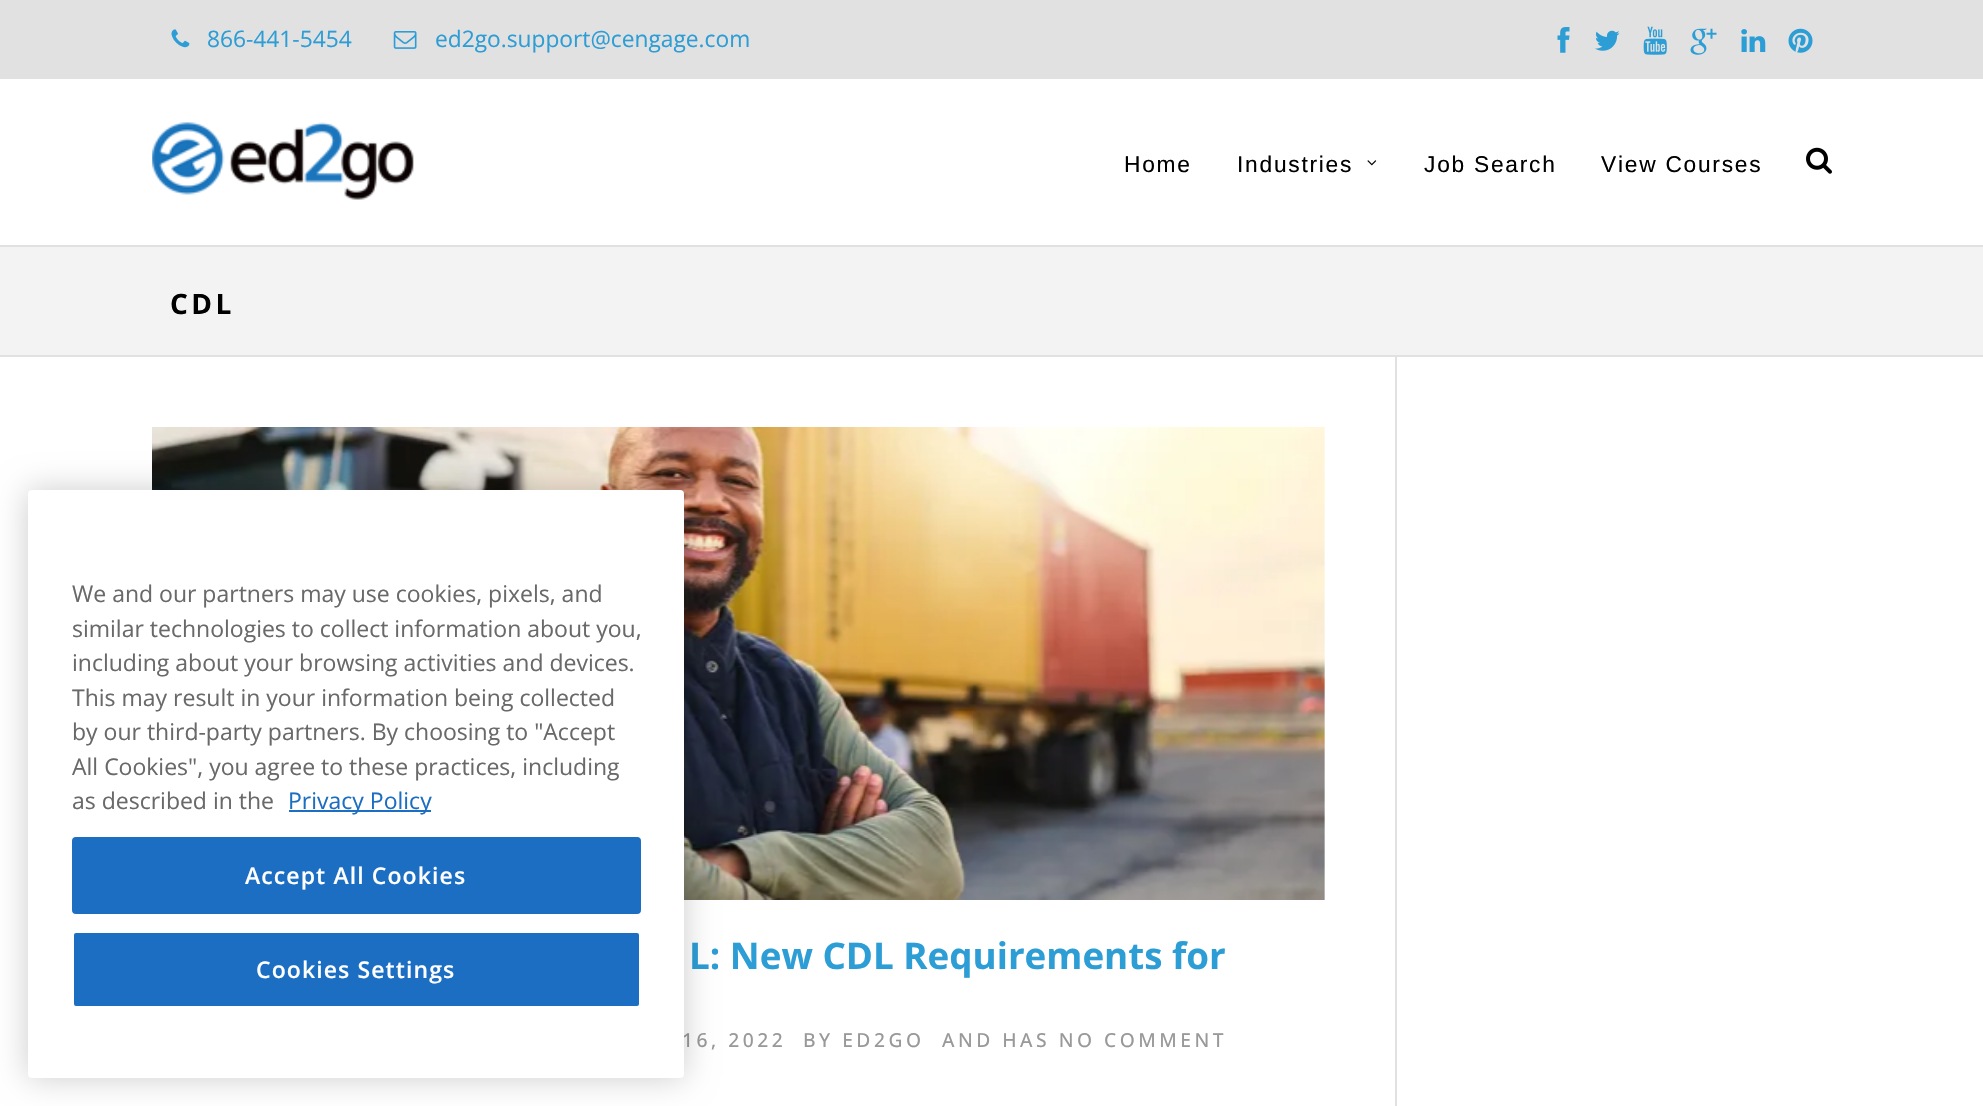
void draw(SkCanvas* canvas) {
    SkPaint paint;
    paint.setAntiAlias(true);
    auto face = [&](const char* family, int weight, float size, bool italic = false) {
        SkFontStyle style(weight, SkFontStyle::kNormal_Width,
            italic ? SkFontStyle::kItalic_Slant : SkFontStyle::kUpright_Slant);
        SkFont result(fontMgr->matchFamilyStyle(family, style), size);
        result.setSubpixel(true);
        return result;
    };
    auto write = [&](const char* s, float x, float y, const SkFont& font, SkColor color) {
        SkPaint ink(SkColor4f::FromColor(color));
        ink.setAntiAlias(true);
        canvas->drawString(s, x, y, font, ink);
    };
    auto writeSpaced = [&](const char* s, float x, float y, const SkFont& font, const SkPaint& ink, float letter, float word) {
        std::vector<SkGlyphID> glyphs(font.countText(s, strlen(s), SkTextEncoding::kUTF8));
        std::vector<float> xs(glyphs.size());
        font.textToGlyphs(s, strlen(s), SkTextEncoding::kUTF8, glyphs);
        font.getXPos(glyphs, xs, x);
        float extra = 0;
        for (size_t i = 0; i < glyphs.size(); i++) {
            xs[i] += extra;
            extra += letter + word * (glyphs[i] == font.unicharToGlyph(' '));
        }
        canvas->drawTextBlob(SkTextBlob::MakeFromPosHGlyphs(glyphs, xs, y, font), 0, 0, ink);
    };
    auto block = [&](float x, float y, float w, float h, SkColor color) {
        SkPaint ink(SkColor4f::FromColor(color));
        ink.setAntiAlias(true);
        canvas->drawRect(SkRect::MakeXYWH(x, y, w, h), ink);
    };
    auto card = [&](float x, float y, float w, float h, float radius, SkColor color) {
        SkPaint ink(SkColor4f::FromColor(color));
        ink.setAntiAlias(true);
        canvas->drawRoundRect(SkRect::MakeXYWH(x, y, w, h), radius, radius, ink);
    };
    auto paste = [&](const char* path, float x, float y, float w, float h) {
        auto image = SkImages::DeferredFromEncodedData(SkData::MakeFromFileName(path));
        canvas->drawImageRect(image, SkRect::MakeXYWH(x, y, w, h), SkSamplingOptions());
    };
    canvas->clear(SK_ColorWHITE);
    block(0, 0, 1983, 79, SkColorSetRGB(225, 225, 225));
    paste("pic1.png", 171, 29, 19, 19);
    auto kFont1 = face("Open Sans", 400, 22.75f);
    write("866-441-5454", 207, 47, kFont1, SkColorSetRGB(44, 157, 213));
    paste("pic2.png", 393, 31, 24, 18);
    write("ed2go.support@cengage.com", 435, 47, kFont1, SkColorSetRGB(44, 157, 213));
    paste("pic3.png", 1557, 27, 13, 26);
    paste("pic4.png", 1595, 30, 25, 21);
    paste("pic5.png", 1643, 26, 24, 29);
    paste("pic6.png", 1690, 28, 27, 27);
    paste("pic7.png", 1741, 29, 25, 23);
    paste("pic8.png", 1788, 28, 25, 25);
    block(0, 245, 1983, 2, SkColorSetRGB(225, 225, 225));
    paste("pic9.png", 152, 122, 262, 78);
    auto kFont2 = face("Liberation Sans", 400, 22.75f);
    paint.setColor(SK_ColorBLACK);
    writeSpaced("Home", 1124, 172, kFont2, paint, 1.75f, 0);
    writeSpaced("Industries", 1237, 172, kFont2, paint, 1.75f, 0);
    paste("pic10.png", 1367, 160, 10, 6);
    writeSpaced("Job Search", 1424, 172, kFont2, paint, 1.75f, 0);
    writeSpaced("View Courses", 1601, 172, kFont2, paint, 1.75f, 0);
    paste("pic11.png", 1806, 147, 26, 27);
    block(0, 247, 1983, 108, SkColorSetRGB(243, 243, 243));
    block(0, 355, 1983, 2, SkColorSetRGB(225, 225, 225));
    auto kFont3 = face("Open Sans", 700, 28);
    writeSpaced("CDL", 170, 314, kFont3, paint, 3.5f, 0);
    block(1395, 357, 2, 749, SkColorSetRGB(225, 225, 225));
    paste("pic12.png", 152, 427, 1173, 473);
    auto kFont4 = face("Open Sans", 700, 36.75f);
    write("L: New CDL Requirements for", 689, 969, kFont4, SkColorSetRGB(44, 157, 213));
    auto kFont5 = face("Open Sans", 500, 19.25f);
    paint.setColor(SkColorSetRGB(153, 153, 153));
    writeSpaced("16, 2022", 682, 1047, kFont5, paint, 3.5f, 0);
    writeSpaced("BY ED2GO", 803, 1047, kFont5, paint, 3.5f, 0);
    writeSpaced("AND HAS NO COMMENT", 942, 1047, kFont5, paint, 3.5f, 0);
    paint.setColor(SkColorSetARGB(51, 0, 0, 0));
    paint.setMaskFilter(SkMaskFilter::MakeBlur(kNormal_SkBlurStyle, 16));
    canvas->drawRoundRect(SkRect::MakeXYWH(28, 490, 656, 588), 4, 4, paint);
    paint.setMaskFilter(nullptr);
    card(28, 490, 656, 588, 4, SK_ColorWHITE);
    auto kFont6 = face("Open Sans", 400, 23);
    write("We and our partners may use cookies, pixels, and", 72, 602, kFont6, SkColorSetRGB(105, 105, 105));
    write("similar technologies to collect information about you,", 72, 637, kFont6, SkColorSetRGB(105, 105, 105));
    write("including about your browsing activities and devices.", 72, 671, kFont6, SkColorSetRGB(105, 105, 105));
    write("This may result in your information being collected", 72, 706, kFont6, SkColorSetRGB(105, 105, 105));
    write("by our third-party partners. By choosing to \"Accept", 72, 740, kFont6, SkColorSetRGB(105, 105, 105));
    write("All Cookies\", you agree to these practices, including", 72, 775, kFont6, SkColorSetRGB(105, 105, 105));
    write("as described in the", 72, 809, kFont6, SkColorSetRGB(105, 105, 105));
    block(289, 810, 142, 2, SkColorSetRGB(27, 110, 194));
    write("Privacy Policy", 288, 809, kFont6, SkColorSetRGB(27, 110, 194));
    paint.setColor(SkColorSetRGB(27, 110, 194));
    canvas->drawRoundRect(SkRect::MakeXYWH(73, 838, 567, 75), 3, 3, paint);
    paint.setStyle(SkPaint::kStroke_Style);
    paint.setStrokeWidth(2);
    canvas->drawRoundRect(SkRect::MakeXYWH(73, 838, 567, 75), 3, 3, paint);
    auto kFont7 = face("Open Sans", 600, 23);
    paint.setStyle(SkPaint::kFill_Style);
    paint.setColor(SK_ColorWHITE);
    writeSpaced("Accept All Cookies", 245, 884, kFont7, paint, 1.1f, 0);
    paint.setColor(SkColorSetRGB(27, 110, 194));
    canvas->drawRoundRect(SkRect::MakeXYWH(73, 932, 567, 75), 3, 3, paint);
    paint.setStyle(SkPaint::kStroke_Style);
    paint.setColor(SK_ColorWHITE);
    canvas->drawRoundRect(SkRect::MakeXYWH(73, 932, 567, 75), 3, 3, paint);
    paint.setStyle(SkPaint::kFill_Style);
    writeSpaced("Cookies Settings", 256, 978, kFont7, paint, 1.1f, 0);
}
